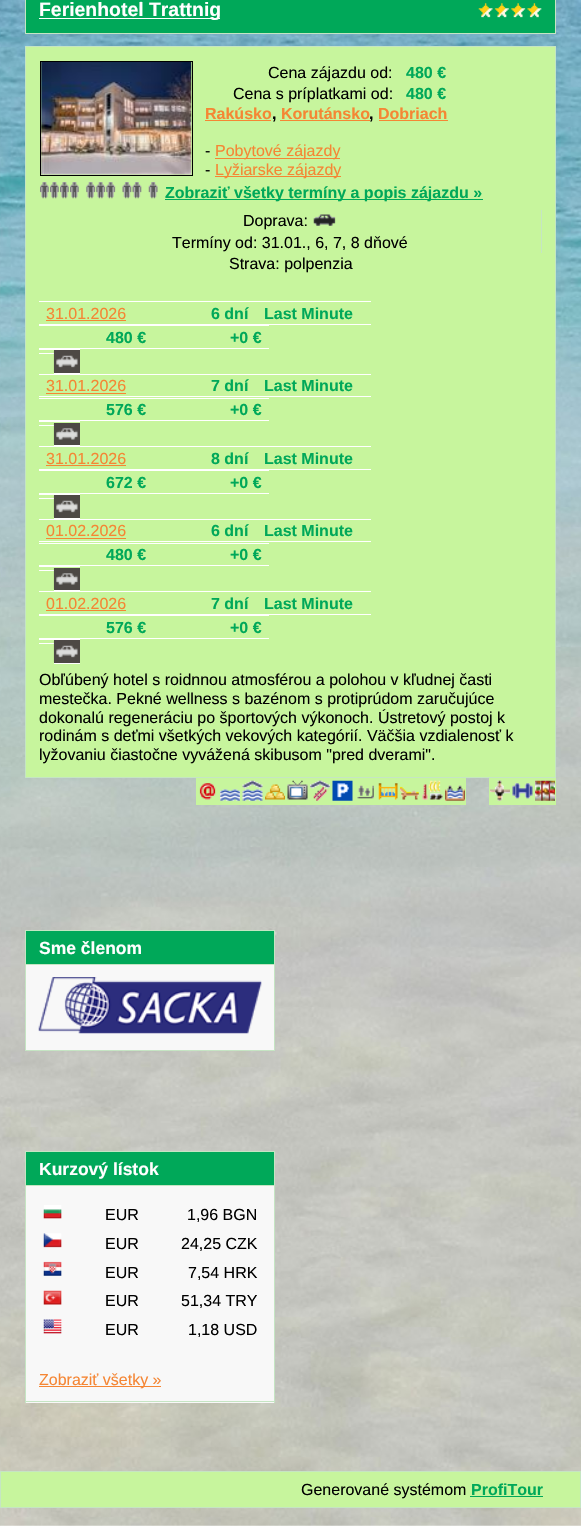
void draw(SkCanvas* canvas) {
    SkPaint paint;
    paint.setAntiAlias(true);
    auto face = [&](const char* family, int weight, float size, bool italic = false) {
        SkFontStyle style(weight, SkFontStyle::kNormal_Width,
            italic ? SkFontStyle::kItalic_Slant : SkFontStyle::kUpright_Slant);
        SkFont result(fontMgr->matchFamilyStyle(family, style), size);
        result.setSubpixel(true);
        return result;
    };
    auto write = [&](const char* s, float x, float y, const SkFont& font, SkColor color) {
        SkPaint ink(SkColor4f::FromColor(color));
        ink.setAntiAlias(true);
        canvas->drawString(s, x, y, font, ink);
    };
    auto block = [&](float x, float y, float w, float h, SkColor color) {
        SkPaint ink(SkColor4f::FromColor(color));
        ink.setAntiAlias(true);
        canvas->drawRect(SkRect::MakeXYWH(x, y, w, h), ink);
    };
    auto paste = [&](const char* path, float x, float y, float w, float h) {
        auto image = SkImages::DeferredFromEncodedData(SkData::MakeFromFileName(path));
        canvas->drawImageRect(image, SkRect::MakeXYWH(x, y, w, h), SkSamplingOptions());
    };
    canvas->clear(SK_ColorWHITE);
    paste("pic1.png", 0, 0, 581, 1526);
    paint.setColor(SkColorSetRGB(0, 168, 89));
    canvas->drawRect(SkRect::MakeXYWH(25.5f, -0.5f, 530, 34), paint);
    paint.setStyle(SkPaint::kStroke_Style);
    paint.setStrokeWidth(1);
    paint.setColor(SkColorSetRGB(197, 229, 195));
    canvas->drawRect(SkRect::MakeXYWH(25.5f, -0.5f, 530, 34), paint);
    block(39, 18, 181, 1, SK_ColorWHITE);
    auto kFont1 = face("Liberation Sans", 700, 19.4f);
    write("Ferienhotel Trattnig", 39, 16, kFont1, SK_ColorWHITE);
    paste("pic2.png", 478, 3, 15, 15);
    paste("pic3.png", 494, 3, 15, 15);
    paste("pic4.png", 511, 3, 15, 15);
    paste("pic5.png", 527, 3, 15, 15);
    paint.setStyle(SkPaint::kFill_Style);
    paint.setColor(SkColorSetRGB(199, 245, 157));
    canvas->drawRect(SkRect::MakeXYWH(25.5f, 46.5f, 530, 731), paint);
    paint.setStyle(SkPaint::kStroke_Style);
    paint.setColor(SkColorSetRGB(197, 229, 195));
    canvas->drawRect(SkRect::MakeXYWH(25.5f, 46.5f, 530, 731), paint);
    paint.setColor(SK_ColorBLACK);
    canvas->drawRect(SkRect::MakeXYWH(40.5f, 61.5f, 152, 114), paint);
    paste("pic6.png", 41, 62, 151, 113);
    auto kFont2 = face("Liberation Sans", 400, 16);
    write("Cena zájazdu od:", 268, 78, kFont2, SK_ColorBLACK);
    auto kFont3 = face("Liberation Sans", 700, 16);
    write("480 €", 406, 78, kFont3, SkColorSetRGB(0, 168, 89));
    write("Cena s príplatkami od:", 233, 99, kFont2, SK_ColorBLACK);
    write("480 €", 406, 99, kFont3, SkColorSetRGB(0, 168, 89));
    write("Rakúsko", 205, 119, kFont3, SkColorSetRGB(245, 134, 52));
    block(205, 120, 66, 1, SkColorSetRGB(245, 134, 52));
    write(",", 272, 119, kFont3, SK_ColorBLACK);
    write("Korutánsko", 281, 119, kFont3, SkColorSetRGB(245, 134, 52));
    block(280, 120, 90, 1, SkColorSetRGB(245, 134, 52));
    write(",", 369, 119, kFont3, SK_ColorBLACK);
    write("Dobriach", 378, 119, kFont3, SkColorSetRGB(245, 134, 52));
    block(379, 120, 69, 1, SkColorSetRGB(245, 134, 52));
    write("-", 205, 156, kFont2, SK_ColorBLACK);
    block(215, 158, 125, 1, SkColorSetRGB(245, 134, 52));
    write("Pobytové zájazdy", 215, 156, kFont2, SkColorSetRGB(245, 134, 52));
    write("-", 205, 175, kFont2, SK_ColorBLACK);
    block(215, 176, 126, 1, SkColorSetRGB(245, 134, 52));
    write("Lyžiarske zájazdy", 215, 175, kFont2, SkColorSetRGB(245, 134, 52));
    paste("pic7.png", 40, 182, 9, 17);
    paste("pic7.png", 50, 182, 9, 17);
    paste("pic7.png", 60, 182, 9, 17);
    paste("pic7.png", 70, 182, 9, 17);
    paste("pic8.png", 86, 182, 10, 17);
    paste("pic8.png", 96, 182, 10, 17);
    paste("pic8.png", 106, 182, 10, 17);
    paste("pic9.png", 122, 182, 10, 17);
    paste("pic9.png", 132, 182, 10, 17);
    paste("pic10.png", 148, 182, 10, 17);
    block(165, 199, 318, 1, SkColorSetRGB(0, 168, 89));
    write("Zobraziť všetky termíny a popis zájazdu »", 165, 198, kFont3, SkColorSetRGB(0, 168, 89));
    block(541, 210, 1, 43, SkColorSetRGB(197, 229, 195));
    write("Doprava:", 243, 226, kFont2, SK_ColorBLACK);
    paste("pic11.png", 313, 214, 23, 12);
    write("Termíny od: 31.01., 6, 7, 8 dňové", 172, 248, kFont2, SK_ColorBLACK);
    write("Strava: polpenzia", 229, 269, kFont2, SK_ColorBLACK);
    block(39, 301, 332, 1, SK_ColorWHITE);
    block(39, 324, 332, 1, SK_ColorWHITE);
    write("31.01.2026", 46, 319, kFont2, SkColorSetRGB(245, 134, 52));
    block(46, 320, 80, 1, SkColorSetRGB(245, 134, 52));
    write("6 dní", 211, 319, kFont3, SkColorSetRGB(0, 168, 89));
    write("Last Minute", 264, 319, kFont3, SkColorSetRGB(0, 168, 89));
    block(39, 325, 230, 1, SK_ColorWHITE);
    block(39, 348, 230, 1, SK_ColorWHITE);
    write("480 €", 106, 343, kFont3, SkColorSetRGB(0, 168, 89));
    write("+0 €", 230, 343, kFont3, SkColorSetRGB(0, 168, 89));
    block(39, 349, 41, 1, SK_ColorWHITE);
    block(39, 353, 15, 1, SK_ColorWHITE);
    block(54, 350, 26, 23, SkColorSetRGB(77, 73, 69));
    block(54, 373, 26, 1, SK_ColorWHITE);
    paste("pic12.png", 53, 351, 25, 21);
    block(39, 374, 332, 1, SK_ColorWHITE);
    block(39, 396, 332, 1, SK_ColorWHITE);
    write("31.01.2026", 46, 391, kFont2, SkColorSetRGB(245, 134, 52));
    block(46, 393, 80, 1, SkColorSetRGB(245, 134, 52));
    write("7 dní", 211, 391, kFont3, SkColorSetRGB(0, 168, 89));
    write("Last Minute", 264, 391, kFont3, SkColorSetRGB(0, 168, 89));
    block(39, 398, 230, 1, SK_ColorWHITE);
    block(39, 420, 230, 1, SK_ColorWHITE);
    write("576 €", 106, 415, kFont3, SkColorSetRGB(0, 168, 89));
    write("+0 €", 230, 415, kFont3, SkColorSetRGB(0, 168, 89));
    block(39, 421, 41, 1, SK_ColorWHITE);
    block(39, 425, 15, 1, SK_ColorWHITE);
    block(54, 423, 26, 22, SkColorSetRGB(77, 73, 69));
    block(54, 445, 26, 1, SK_ColorWHITE);
    paste("pic13.png", 53, 423, 25, 21);
    block(39, 446, 332, 1, SK_ColorWHITE);
    block(39, 469, 332, 1, SK_ColorWHITE);
    write("31.01.2026", 46, 464, kFont2, SkColorSetRGB(245, 134, 52));
    block(46, 465, 80, 1, SkColorSetRGB(245, 134, 52));
    write("8 dní", 211, 464, kFont3, SkColorSetRGB(0, 168, 89));
    write("Last Minute", 264, 464, kFont3, SkColorSetRGB(0, 168, 89));
    block(39, 470, 230, 1, SK_ColorWHITE);
    block(39, 493, 230, 1, SK_ColorWHITE);
    write("672 €", 106, 488, kFont3, SkColorSetRGB(0, 168, 89));
    write("+0 €", 230, 488, kFont3, SkColorSetRGB(0, 168, 89));
    block(39, 494, 41, 1, SK_ColorWHITE);
    block(39, 498, 15, 1, SK_ColorWHITE);
    block(54, 495, 26, 23, SkColorSetRGB(77, 73, 69));
    block(54, 518, 26, 1, SK_ColorWHITE);
    paste("pic12.png", 53, 496, 25, 21);
    block(39, 519, 332, 1, SK_ColorWHITE);
    block(39, 541, 332, 1, SK_ColorWHITE);
    write("01.02.2026", 46, 536, kFont2, SkColorSetRGB(245, 134, 52));
    block(46, 538, 80, 1, SkColorSetRGB(245, 134, 52));
    write("6 dní", 211, 536, kFont3, SkColorSetRGB(0, 168, 89));
    write("Last Minute", 264, 536, kFont3, SkColorSetRGB(0, 168, 89));
    block(39, 543, 230, 1, SK_ColorWHITE);
    block(39, 565, 230, 1, SK_ColorWHITE);
    write("480 €", 106, 560, kFont3, SkColorSetRGB(0, 168, 89));
    write("+0 €", 230, 560, kFont3, SkColorSetRGB(0, 168, 89));
    block(39, 566, 41, 1, SK_ColorWHITE);
    block(39, 570, 15, 1, SK_ColorWHITE);
    block(54, 568, 26, 22, SkColorSetRGB(77, 73, 69));
    block(54, 590, 26, 1, SK_ColorWHITE);
    paste("pic13.png", 53, 568, 25, 21);
    block(39, 591, 332, 1, SK_ColorWHITE);
    block(39, 614, 332, 1, SK_ColorWHITE);
    write("01.02.2026", 46, 609, kFont2, SkColorSetRGB(245, 134, 52));
    block(46, 610, 80, 1, SkColorSetRGB(245, 134, 52));
    write("7 dní", 211, 609, kFont3, SkColorSetRGB(0, 168, 89));
    write("Last Minute", 264, 609, kFont3, SkColorSetRGB(0, 168, 89));
    block(39, 615, 230, 1, SK_ColorWHITE);
    block(39, 638, 230, 1, SK_ColorWHITE);
    write("576 €", 106, 633, kFont3, SkColorSetRGB(0, 168, 89));
    write("+0 €", 230, 633, kFont3, SkColorSetRGB(0, 168, 89));
    block(39, 639, 41, 1, SK_ColorWHITE);
    block(39, 643, 15, 1, SK_ColorWHITE);
    block(54, 640, 26, 23, SkColorSetRGB(77, 73, 69));
    block(54, 663, 26, 1, SK_ColorWHITE);
    paste("pic12.png", 53, 641, 25, 21);
    write("Obľúbený hotel s roidnnou atmosférou a polohou v kľudnej časti", 39, 685, kFont2, SK_ColorBLACK);
    write("mestečka. Pekné wellness s bazénom s protiprúdom zaručujúce", 39, 704, kFont2, SK_ColorBLACK);
    write("dokonalú regeneráciu po športových výkonoch. Ústretový postoj k", 39, 723, kFont2, SK_ColorBLACK);
    write("rodinám s deťmi všetkých vekových kategórií. Väčšia vzdialenosť k", 39, 741, kFont2, SK_ColorBLACK);
    write("lyžovaniu čiastočne vyvážená skibusom \"pred dverami\".", 39, 760, kFont2, SK_ColorBLACK);
    block(196, 778, 270, 27, SkColorSetRGB(199, 245, 157));
    paste("pic14.png", 445, 785, 20, 16);
    block(489, 778, 67, 27, SkColorSetRGB(199, 245, 157));
    paste("pic15.png", 535, 780, 20, 21);
    paste("pic16.png", 199, 783, 17, 17);
    paste("pic17.png", 220, 789, 20, 12);
    paste("pic18.png", 242, 780, 21, 21);
    paste("pic19.png", 265, 784, 20, 16);
    paste("pic20.png", 287, 780, 21, 20);
    paste("pic21.png", 310, 780, 20, 21);
    paste("pic22.png", 332, 780, 21, 21);
    paste("pic23.png", 357, 785, 17, 14);
    paste("pic24.png", 378, 783, 20, 17);
    paste("pic25.png", 400, 786, 19, 14);
    paste("pic26.png", 422, 780, 21, 20);
    paste("pic27.png", 490, 780, 20, 21);
    paste("pic28.png", 512, 783, 21, 16);
    paint.setStyle(SkPaint::kFill_Style);
    paint.setColor(SkColorSetRGB(0, 168, 89));
    canvas->drawRect(SkRect::MakeXYWH(25.5f, 930.5f, 249, 34), paint);
    paint.setStyle(SkPaint::kStroke_Style);
    paint.setColor(SkColorSetRGB(197, 229, 195));
    canvas->drawRect(SkRect::MakeXYWH(25.5f, 930.5f, 249, 34), paint);
    auto kFont4 = face("Liberation Sans", 700, 17.5f);
    write("Sme členom", 39, 954, kFont4, SK_ColorWHITE);
    block(26, 965, 248, 85, SkColorSetRGB(248, 248, 248));
    block(274, 965, 1, 86, SkColorSetRGB(197, 229, 195));
    block(25, 1050, 250, 1, SkColorSetRGB(197, 229, 195));
    block(25, 965, 1, 86, SkColorSetRGB(197, 229, 195));
    paste("pic29.png", 38, 977, 224, 57);
    paint.setStyle(SkPaint::kFill_Style);
    paint.setColor(SkColorSetRGB(0, 168, 89));
    canvas->drawRect(SkRect::MakeXYWH(25.5f, 1151.5f, 249, 34), paint);
    paint.setStyle(SkPaint::kStroke_Style);
    paint.setColor(SkColorSetRGB(197, 229, 195));
    canvas->drawRect(SkRect::MakeXYWH(25.5f, 1151.5f, 249, 34), paint);
    write("Kurzový lístok", 39, 1175, kFont4, SK_ColorWHITE);
    block(26, 1186, 248, 217, SkColorSetRGB(248, 248, 248));
    block(274, 1186, 1, 217, SkColorSetRGB(197, 229, 195));
    block(25, 1401, 250, 1, SkColorSetRGB(197, 229, 195));
    block(25, 1186, 1, 217, SkColorSetRGB(197, 229, 195));
    paste("pic30.png", 43, 1205, 19, 14);
    write("EUR", 105, 1220, kFont2, SK_ColorBLACK);
    write("1,96 BGN", 187, 1220, kFont2, SK_ColorBLACK);
    paste("pic31.png", 43, 1233, 19, 15);
    write("EUR", 105, 1249, kFont2, SK_ColorBLACK);
    write("24,25 CZK", 181, 1249, kFont2, SK_ColorBLACK);
    paste("pic32.png", 43, 1261, 19, 15);
    write("EUR", 105, 1278, kFont2, SK_ColorBLACK);
    write("7,54 HRK", 188, 1278, kFont2, SK_ColorBLACK);
    paste("pic33.png", 43, 1290, 19, 15);
    write("EUR", 105, 1306, kFont2, SK_ColorBLACK);
    write("51,34 TRY", 181, 1306, kFont2, SK_ColorBLACK);
    paste("pic34.png", 43, 1319, 19, 15);
    write("EUR", 105, 1335, kFont2, SK_ColorBLACK);
    write("1,18 USD", 188, 1335, kFont2, SK_ColorBLACK);
    block(39, 1386, 122, 1, SkColorSetRGB(245, 134, 52));
    write("Zobraziť všetky »", 39, 1385, kFont2, SkColorSetRGB(245, 134, 52));
    paint.setStyle(SkPaint::kFill_Style);
    paint.setColor(SkColorSetRGB(199, 245, 157));
    canvas->drawRect(SkRect::MakeXYWH(0.5f, 1471.5f, 580, 36), paint);
    paint.setStyle(SkPaint::kStroke_Style);
    paint.setColor(SkColorSetRGB(197, 229, 195));
    canvas->drawRect(SkRect::MakeXYWH(0.5f, 1471.5f, 580, 36), paint);
    write("Generované systémom", 301, 1495, kFont2, SK_ColorBLACK);
    write("ProfiTour", 471, 1495, kFont3, SkColorSetRGB(0, 168, 89));
    block(470, 1496, 73, 1, SkColorSetRGB(0, 168, 89));
}
